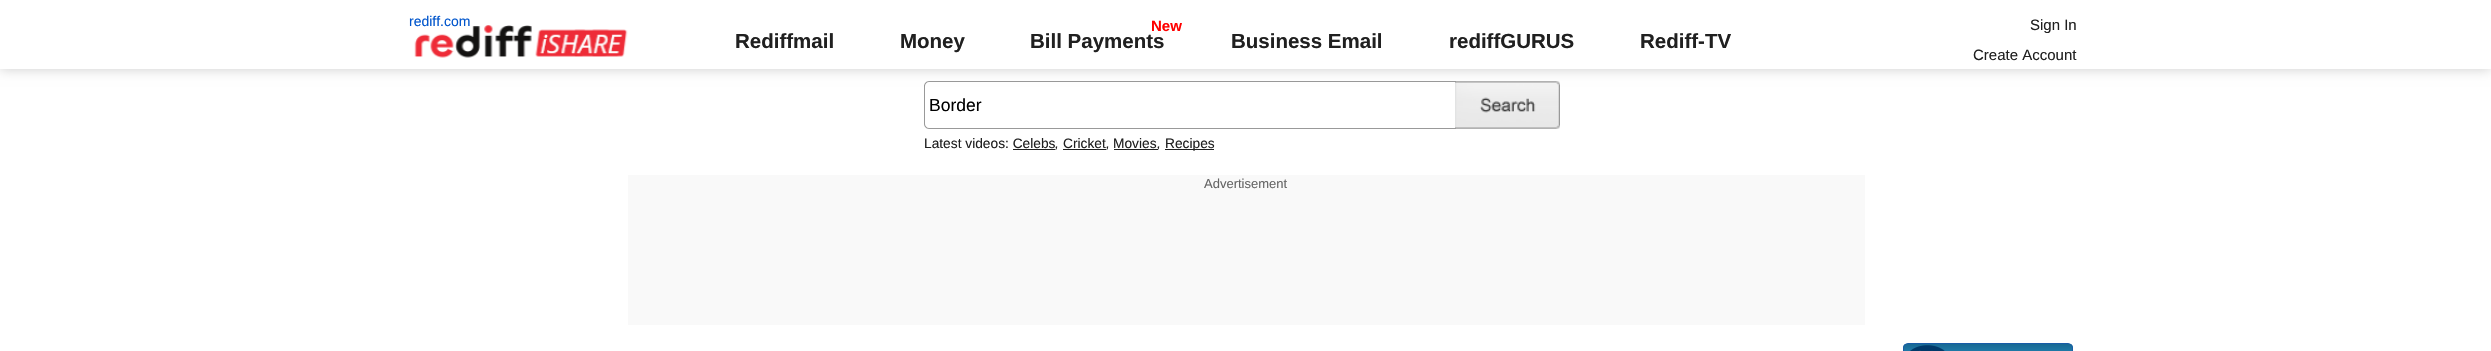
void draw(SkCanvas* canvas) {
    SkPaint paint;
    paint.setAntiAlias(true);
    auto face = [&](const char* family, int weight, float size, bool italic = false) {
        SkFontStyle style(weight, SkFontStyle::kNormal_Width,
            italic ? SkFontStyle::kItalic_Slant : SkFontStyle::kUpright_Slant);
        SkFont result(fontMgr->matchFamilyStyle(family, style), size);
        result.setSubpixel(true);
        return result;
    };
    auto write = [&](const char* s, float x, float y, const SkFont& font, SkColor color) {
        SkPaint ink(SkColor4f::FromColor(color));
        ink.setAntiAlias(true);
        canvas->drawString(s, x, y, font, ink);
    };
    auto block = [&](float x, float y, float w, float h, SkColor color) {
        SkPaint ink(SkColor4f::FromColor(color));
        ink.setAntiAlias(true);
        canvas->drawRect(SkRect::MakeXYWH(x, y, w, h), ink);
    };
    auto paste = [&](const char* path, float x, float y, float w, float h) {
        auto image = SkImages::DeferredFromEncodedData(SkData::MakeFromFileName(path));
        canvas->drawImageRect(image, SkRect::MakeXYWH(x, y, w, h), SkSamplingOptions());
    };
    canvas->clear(SK_ColorWHITE);
    paint.setColor(SkColorSetRGB(153, 153, 153));
    canvas->drawPath(SkPathBuilder(SkPathFillType::kEvenOdd).moveTo(929, 81).lineTo(1456, 81).lineTo(1456, 129).lineTo(929, 129).cubicTo(926, 129, 924, 126, 924, 124).lineTo(924, 86).cubicTo(924, 84, 926, 81, 929, 81).close().moveTo(929, 82).lineTo(1456, 82).lineTo(1456, 128).lineTo(929, 128).cubicTo(927, 128, 925, 126, 925, 124).lineTo(925, 86).cubicTo(925, 84, 927, 82, 929, 82).close().detach(), paint);
    paste("pic2.png", 1455, 81, 105, 48);
    paint.setColor(SkColorSetARGB(51, 0, 0, 0));
    paint.setMaskFilter(SkMaskFilter::MakeBlur(kNormal_SkBlurStyle, 6));
    canvas->drawRect(SkRect::MakeXYWH(0, 0, 2491, 69), paint);
    paint.setMaskFilter(nullptr);
    block(0, 0, 2491, 69, SK_ColorWHITE);
    paste("pic1.png", 414, 25, 214, 33);
    auto kFont1 = face("Liberation Sans", 400, 14);
    write("rediff.com", 409, 26, kFont1, SkColorSetRGB(0, 85, 204));
    auto kFont2 = face("Liberation Sans", 700, 20.5f);
    write("Rediffmail", 735, 48, kFont2, SkColorSetRGB(32, 32, 32));
    write("Money", 900, 48, kFont2, SkColorSetRGB(32, 32, 32));
    auto kFont3 = face("Liberation Sans", 700, 15);
    write("New", 1151, 31, kFont3, SkColorSetRGB(255, 0, 0));
    write("Bill Payments", 1030, 48, kFont2, SkColorSetRGB(32, 32, 32));
    write("Business Email", 1231, 48, kFont2, SkColorSetRGB(32, 32, 32));
    write("rediffGURUS", 1449, 48, kFont2, SkColorSetRGB(32, 32, 32));
    write("Rediff-TV", 1640, 48, kFont2, SkColorSetRGB(32, 32, 32));
    auto kFont4 = face("Liberation Sans", 400, 15);
    write("Sign In", 2030, 30, kFont4, SkColorSetRGB(32, 32, 32));
    write("Create Account", 1973, 60, kFont4, SkColorSetRGB(32, 32, 32));
    auto kFont5 = face("Liberation Sans", 400, 17.5f);
    write("Border", 929, 111, kFont5, SK_ColorBLACK);
    auto kFont6 = face("Liberation Sans", 400, 13.75f);
    write("Latest videos: Celebs", 924, 148, kFont6, SkColorSetRGB(32, 32, 32));
    auto kFont7 = face("Liberation Sans", 400, 13.75f, true);
    write(",", 1055, 148, kFont7, SkColorSetRGB(32, 32, 32));
    write("Cricket", 1063, 148, kFont6, SkColorSetRGB(32, 32, 32));
    block(1063, 149, 43, 1, SkColorSetRGB(32, 32, 32));
    write(",", 1106, 148, kFont7, SkColorSetRGB(32, 32, 32));
    write("Movies", 1113, 148, kFont6, SkColorSetRGB(32, 32, 32));
    block(1114, 149, 44, 1, SkColorSetRGB(32, 32, 32));
    write(",", 1157, 148, kFont7, SkColorSetRGB(32, 32, 32));
    block(1165, 149, 49, 1, SkColorSetRGB(32, 32, 32));
    write("Recipes", 1165, 148, kFont6, SkColorSetRGB(32, 32, 32));
    block(1013, 149, 42, 1, SkColorSetRGB(32, 32, 32));
    block(628, 175, 1237, 150, SkColorSetRGB(249, 249, 249));
    auto kFont8 = face("Liberation Sans", 400, 13);
    write("Advertisement", 1204, 188, kFont8, SkColorSetRGB(102, 102, 102));
    canvas->save();
    canvas->clipPath(SkPathBuilder().moveTo(1908, 343).lineTo(2068, 343).cubicTo(2071, 343, 2073, 345, 2073, 348).lineTo(2073, 375).cubicTo(2073, 378, 2071, 380, 2068, 380).lineTo(1908, 380).cubicTo(1905, 380, 1903, 378, 1903, 375).lineTo(1903, 348).cubicTo(1903, 345, 1905, 343, 1908, 343).close().detach(), true);
    {
        const SkColor colors[] = {SkColorSetRGB(23, 105, 148), SkColorSetRGB(63, 181, 242)};
        const float stops[] = {0, 1};
        const SkPoint ends[] = {{1988, 344}, {1988, 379}};
        paint.setShader(SkGradientShader::MakeLinear(ends, colors, stops, 2, SkTileMode::kClamp));
        paint.setAlpha(255);
    }
    canvas->drawRect(SkRect::MakeXYWH(1903, 344, 170, 7), paint);
    canvas->restore();
    paint.setStyle(SkPaint::kStroke_Style);
    paint.setStrokeWidth(1);
    paint.setShader(nullptr);
    paint.setColor(SkColorSetRGB(24, 92, 168));
    canvas->drawRoundRect(SkRect::MakeXYWH(1903.5f, 343.5f, 169, 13), 4.5f, 4.5f, paint);
    paste("pic3.png", 1910, 345, 35, 6);
}
